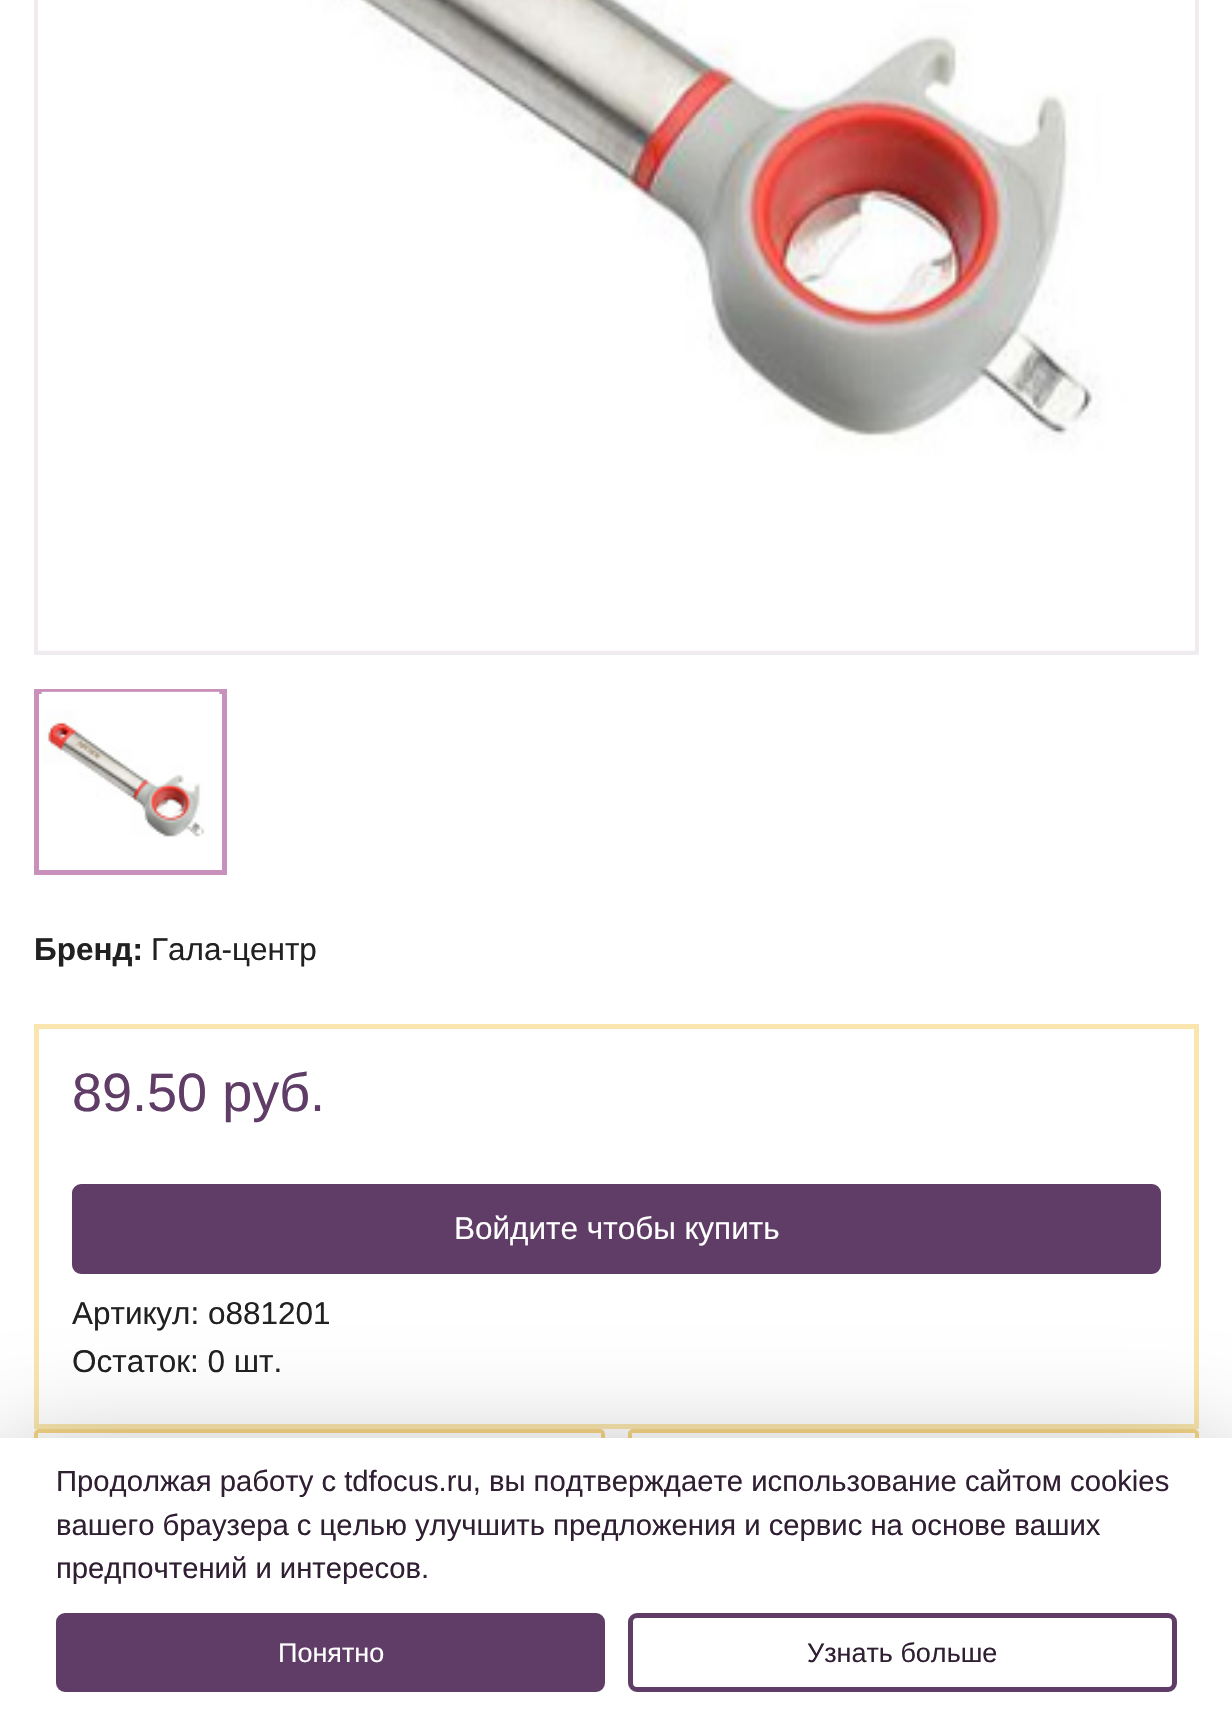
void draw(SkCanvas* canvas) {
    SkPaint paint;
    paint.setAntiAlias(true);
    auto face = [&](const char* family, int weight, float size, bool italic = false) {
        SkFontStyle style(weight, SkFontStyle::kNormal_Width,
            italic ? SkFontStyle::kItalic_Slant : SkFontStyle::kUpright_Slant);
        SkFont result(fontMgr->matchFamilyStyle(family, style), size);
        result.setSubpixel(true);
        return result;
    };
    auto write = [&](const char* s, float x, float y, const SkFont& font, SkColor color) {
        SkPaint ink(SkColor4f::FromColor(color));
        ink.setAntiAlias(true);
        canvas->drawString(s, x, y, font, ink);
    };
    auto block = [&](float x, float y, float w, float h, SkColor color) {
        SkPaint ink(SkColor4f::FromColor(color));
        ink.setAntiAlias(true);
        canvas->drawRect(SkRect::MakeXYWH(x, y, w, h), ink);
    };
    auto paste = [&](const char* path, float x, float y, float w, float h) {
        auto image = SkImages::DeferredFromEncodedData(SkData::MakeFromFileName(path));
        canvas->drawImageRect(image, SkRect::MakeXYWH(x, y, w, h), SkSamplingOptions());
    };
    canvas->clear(SK_ColorWHITE);
    paint.setStyle(SkPaint::kStroke_Style);
    paint.setStrokeWidth(5);
    paint.setColor(SkColorSetRGB(239, 235, 239));
    canvas->drawRect(SkRect::MakeXYWH(36.5f, -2.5f, 1160, 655), paint);
    paste("pic1.png", 38, 0, 1157, 651);
    paint.setColor(SkColorSetRGB(200, 144, 186));
    canvas->drawRect(SkRect::MakeXYWH(36.5f, 691.5f, 188, 181), paint);
    paste("pic2.png", 41, 691, 179, 146);
    auto kFont1 = face("Arimo", 700, 31.5f);
    write("Бренд:", 34, 960, kFont1, SkColorSetRGB(33, 33, 33));
    auto kFont2 = face("Arimo", 400, 31.5f);
    write("Гала-центр", 151, 960, kFont2, SkColorSetRGB(33, 33, 33));
    paint.setColor(SkColorSetRGB(249, 229, 173));
    canvas->drawRect(SkRect::MakeXYWH(36.5f, 1026.5f, 1160, 400), paint);
    auto kFont3 = face("Arimo", 400, 54);
    write("89.50 руб.", 72, 1111, kFont3, SkColorSetRGB(96, 61, 103));
    paint.setStyle(SkPaint::kFill_Style);
    paint.setColor(SkColorSetRGB(96, 61, 103));
    canvas->drawRoundRect(SkRect::MakeXYWH(74.5f, 1186.5f, 1084, 85), 6.5f, 6.5f, paint);
    paint.setStyle(SkPaint::kStroke_Style);
    canvas->drawRoundRect(SkRect::MakeXYWH(74.5f, 1186.5f, 1084, 85), 6.5f, 6.5f, paint);
    write("Войдите чтобы купить", 454, 1239, kFont2, SK_ColorWHITE);
    write("Артикул: о881201", 72, 1324, kFont2, SkColorSetRGB(33, 33, 33));
    write("Остаток: 0 шт.", 72, 1372, kFont2, SkColorSetRGB(33, 33, 33));
    paint.setStrokeWidth(2);
    paint.setColor(SkColorSetRGB(246, 214, 133));
    canvas->drawRoundRect(SkRect::MakeXYWH(35, 1430, 569, 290), 4, 4, paint);
    canvas->drawRect(SkRect::MakeXYWH(37, 1432, 565, 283), paint);
    canvas->drawRoundRect(SkRect::MakeXYWH(629, 1430, 569, 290), 4, 4, paint);
    canvas->drawRect(SkRect::MakeXYWH(631, 1432, 565, 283), paint);
    paint.setStyle(SkPaint::kFill_Style);
    paint.setColor(SkColorSetARGB(77, 0, 0, 0));
    paint.setMaskFilter(SkMaskFilter::MakeBlur(kNormal_SkBlurStyle, 56));
    canvas->drawRect(SkRect::MakeXYWH(0, 1460, 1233, 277), paint);
    paint.setMaskFilter(nullptr);
    block(0, 1438, 1232, 276, SK_ColorWHITE);
    auto kFont4 = face("Arimo", 400, 29.25f);
    write("Продолжая работу с tdfocus.ru, вы подтверждаете использование сайтом cookies", 56, 1491, kFont4, SkColorSetRGB(48, 30, 51));
    write("вашего браузера с целью улучшить предложения и сервис на основе ваших", 56, 1535, kFont4, SkColorSetRGB(48, 30, 51));
    write("предпочтений и интересов.", 56, 1578, kFont4, SkColorSetRGB(48, 30, 51));
    paint.setColor(SkColorSetRGB(96, 61, 103));
    canvas->drawRoundRect(SkRect::MakeXYWH(58.5f, 1615.5f, 544, 74), 6.5f, 6.5f, paint);
    paint.setStyle(SkPaint::kStroke_Style);
    paint.setStrokeWidth(5);
    canvas->drawRoundRect(SkRect::MakeXYWH(58.5f, 1615.5f, 544, 74), 6.5f, 6.5f, paint);
    auto kFont5 = face("Arimo", 400, 27);
    write("Понятно", 278, 1662, kFont5, SK_ColorWHITE);
    canvas->drawRoundRect(SkRect::MakeXYWH(630.5f, 1615.5f, 544, 74), 6.5f, 6.5f, paint);
    write("Узнать больше", 807, 1662, kFont5, SkColorSetRGB(48, 30, 51));
}
